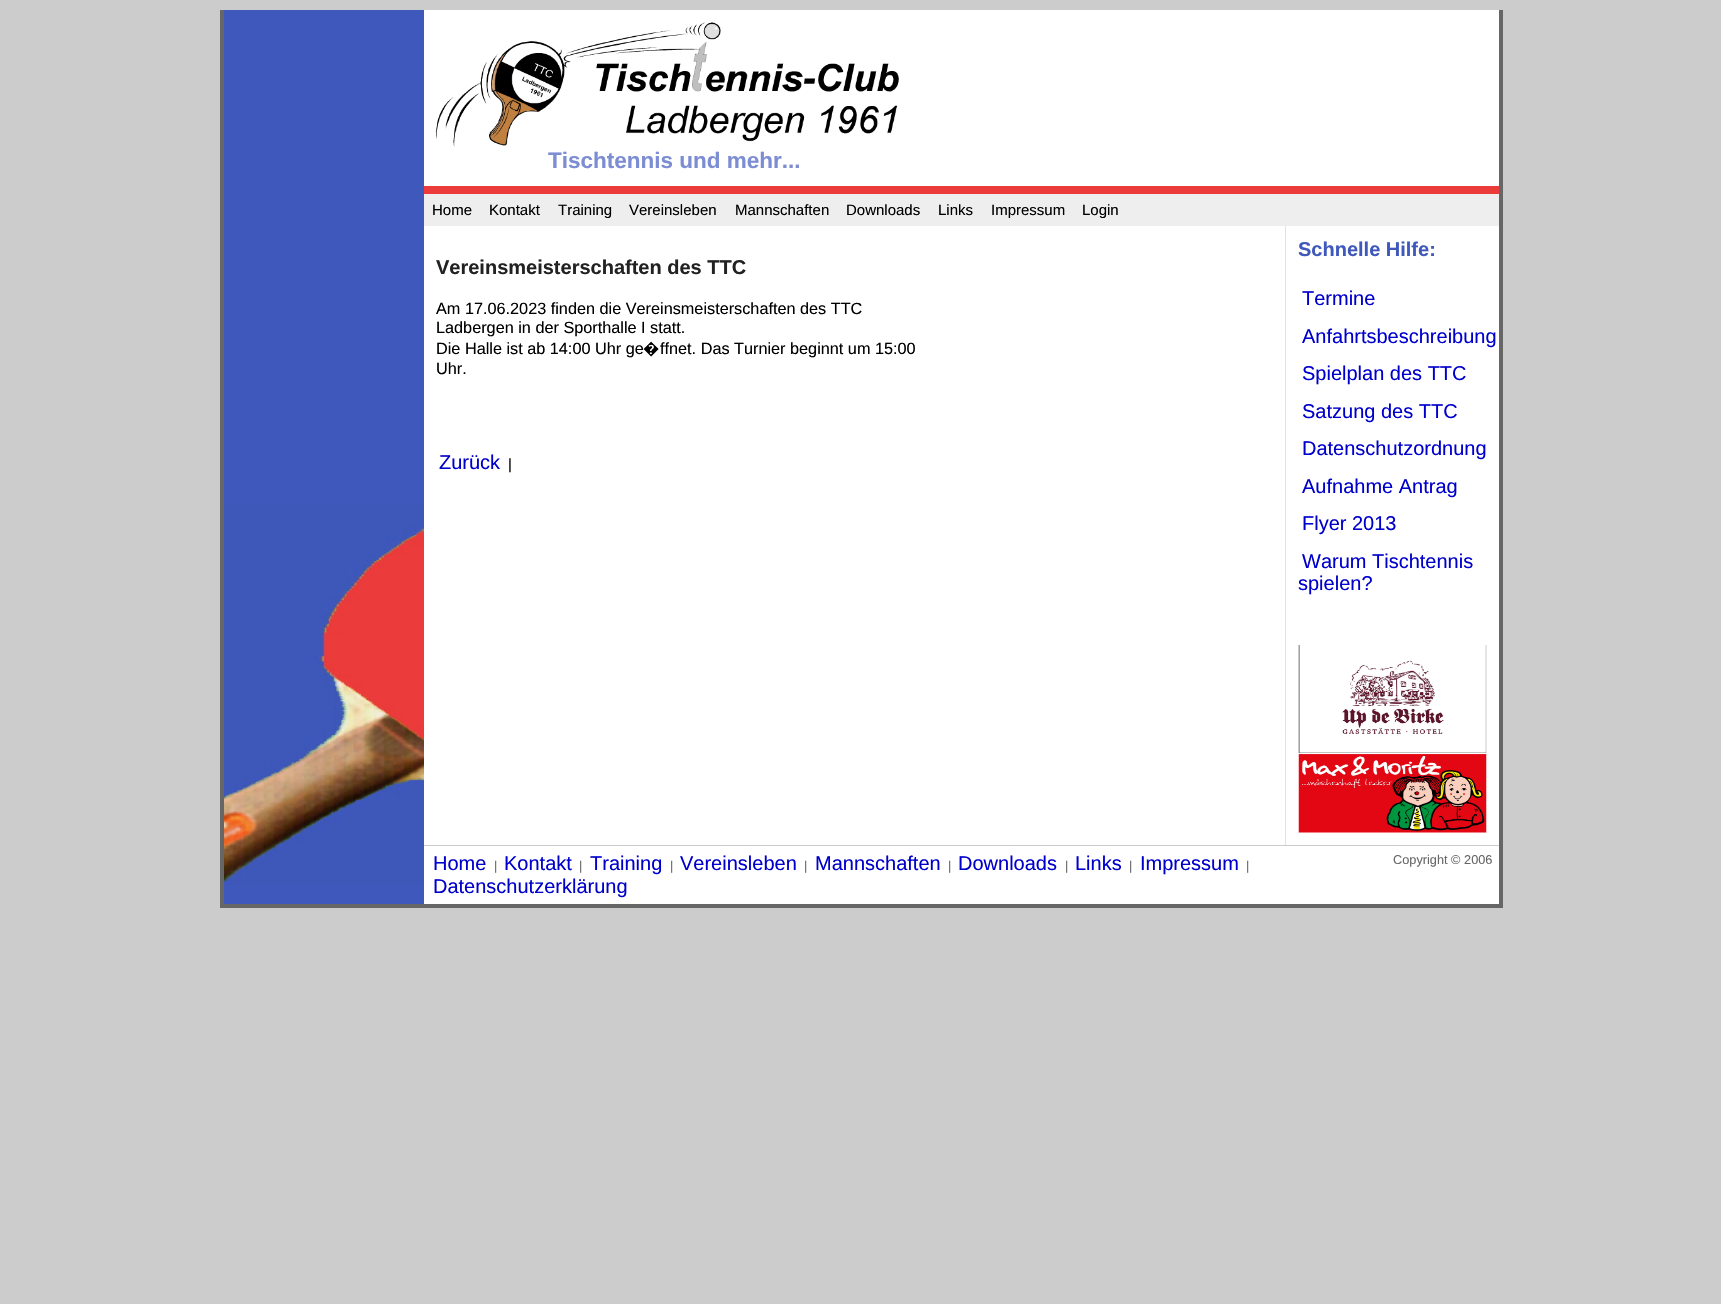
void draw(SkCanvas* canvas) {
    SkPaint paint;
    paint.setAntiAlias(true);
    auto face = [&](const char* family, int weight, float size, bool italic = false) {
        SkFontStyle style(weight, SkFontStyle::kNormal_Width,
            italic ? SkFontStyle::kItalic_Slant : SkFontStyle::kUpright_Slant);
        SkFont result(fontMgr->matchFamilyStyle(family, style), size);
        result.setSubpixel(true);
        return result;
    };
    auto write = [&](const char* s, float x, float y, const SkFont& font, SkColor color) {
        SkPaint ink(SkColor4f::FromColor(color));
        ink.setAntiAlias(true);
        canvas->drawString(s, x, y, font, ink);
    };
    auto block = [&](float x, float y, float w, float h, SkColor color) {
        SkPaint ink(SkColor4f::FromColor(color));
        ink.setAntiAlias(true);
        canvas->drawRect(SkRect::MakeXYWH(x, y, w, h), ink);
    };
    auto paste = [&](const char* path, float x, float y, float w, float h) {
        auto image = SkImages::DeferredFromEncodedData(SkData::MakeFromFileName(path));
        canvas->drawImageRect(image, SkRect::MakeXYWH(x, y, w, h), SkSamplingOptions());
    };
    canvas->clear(SkColorSetRGB(204, 204, 204));
    block(224, 10, 200, 894, SkColorSetRGB(63, 88, 188));
    paste("pic1.png", 224, 505, 200, 380);
    block(1499, 10, 4, 898, SkColorSetRGB(102, 102, 102));
    block(220, 904, 1283, 4, SkColorSetRGB(102, 102, 102));
    block(220, 10, 4, 898, SkColorSetRGB(102, 102, 102));
    block(424, 10, 1075, 176, SK_ColorWHITE);
    block(424, 186, 1075, 8, SkColorSetRGB(235, 59, 59));
    paste("pic2.png", 436, 22, 463, 125);
    auto kFont1 = face("Liberation Sans", 700, 22.5f);
    write("Tischtennis und mehr...", 548, 168, kFont1, SkColorSetRGB(124, 141, 211));
    block(424, 194, 1075, 32, SkColorSetRGB(238, 238, 238));
    auto kFont2 = face("Liberation Sans", 400, 15);
    write("Home", 432, 215, kFont2, SK_ColorBLACK);
    write("Kontakt", 489, 215, kFont2, SK_ColorBLACK);
    write("Training", 558, 215, kFont2, SK_ColorBLACK);
    write("Vereinsleben", 629, 215, kFont2, SK_ColorBLACK);
    write("Mannschaften", 735, 215, kFont2, SK_ColorBLACK);
    write("Downloads", 846, 215, kFont2, SK_ColorBLACK);
    write("Links", 938, 215, kFont2, SK_ColorBLACK);
    write("Impressum", 991, 215, kFont2, SK_ColorBLACK);
    write("Login", 1082, 215, kFont2, SK_ColorBLACK);
    block(424, 226, 1075, 678, SK_ColorWHITE);
    auto kFont3 = face("Liberation Sans", 700, 20);
    write("Vereinsmeisterschaften des TTC", 436, 274, kFont3, SkColorSetRGB(34, 34, 34));
    auto kFont4 = face("Liberation Sans", 400, 16.25f);
    write("Am 17.06.2023 finden die Vereinsmeisterschaften des TTC", 436, 314, kFont4, SK_ColorBLACK);
    write("Ladbergen in der Sporthalle I statt.", 436, 333, kFont4, SK_ColorBLACK);
    write("Die Halle ist ab 14:00 Uhr ge", 436, 354, kFont4, SK_ColorBLACK);
    auto kFont5 = face("Noto Sans", 400, 16.25f);
    write("�", 643, 354, kFont5, SK_ColorBLACK);
    write("ffnet. Das Turnier beginnt um 15:00", 660, 354, kFont4, SK_ColorBLACK);
    write("Uhr.", 436, 374, kFont4, SK_ColorBLACK);
    auto kFont6 = face("Liberation Sans", 400, 20);
    write("Zurück", 439, 469, kFont6, SkColorSetRGB(0, 0, 204));
    write("|", 508, 469, kFont2, SK_ColorBLACK);
    block(1285, 226, 1, 619, SkColorSetRGB(227, 223, 226));
    write("Schnelle Hilfe:", 1298, 256, kFont3, SkColorSetRGB(63, 88, 188));
    write("Termine", 1302, 305, kFont6, SkColorSetRGB(0, 0, 204));
    write("Anfahrtsbeschreibung", 1302, 343, kFont6, SkColorSetRGB(0, 0, 204));
    write("Spielplan des TTC", 1302, 380, kFont6, SkColorSetRGB(0, 0, 204));
    write("Satzung des TTC", 1302, 418, kFont6, SkColorSetRGB(0, 0, 204));
    write("Datenschutzordnung", 1302, 455, kFont6, SkColorSetRGB(0, 0, 204));
    write("Aufnahme Antrag", 1302, 493, kFont6, SkColorSetRGB(0, 0, 204));
    write("Flyer 2013", 1302, 530, kFont6, SkColorSetRGB(0, 0, 204));
    write("Warum Tischtennis", 1302, 568, kFont6, SkColorSetRGB(0, 0, 204));
    write("spielen?", 1298, 590, kFont6, SkColorSetRGB(0, 0, 204));
    paste("pic3.png", 1298, 645, 189, 188);
    block(424, 845, 1075, 1, SkColorSetRGB(204, 204, 204));
    write("Home", 433, 870, kFont6, SkColorSetRGB(0, 0, 204));
    auto kFont7 = face("Liberation Sans", 400, 12.75f);
    write("|", 494, 870, kFont7, SkColorSetRGB(102, 102, 102));
    write("Kontakt", 504, 870, kFont6, SkColorSetRGB(0, 0, 204));
    write("|", 579, 870, kFont7, SkColorSetRGB(102, 102, 102));
    write("Training", 590, 870, kFont6, SkColorSetRGB(0, 0, 204));
    write("|", 670, 870, kFont7, SkColorSetRGB(102, 102, 102));
    write("Vereinsleben", 680, 870, kFont6, SkColorSetRGB(0, 0, 204));
    write("|", 804, 870, kFont7, SkColorSetRGB(102, 102, 102));
    write("Mannschaften", 815, 870, kFont6, SkColorSetRGB(0, 0, 204));
    write("|", 948, 870, kFont7, SkColorSetRGB(102, 102, 102));
    write("Downloads", 958, 870, kFont6, SkColorSetRGB(0, 0, 204));
    write("|", 1065, 870, kFont7, SkColorSetRGB(102, 102, 102));
    write("Links", 1075, 870, kFont6, SkColorSetRGB(0, 0, 204));
    write("|", 1129, 870, kFont7, SkColorSetRGB(102, 102, 102));
    write("Impressum", 1140, 870, kFont6, SkColorSetRGB(0, 0, 204));
    write("|", 1246, 870, kFont7, SkColorSetRGB(102, 102, 102));
    write("Datenschutzerklärung", 433, 893, kFont6, SkColorSetRGB(0, 0, 204));
    write("Copyright © 2006", 1393, 864, kFont7, SkColorSetRGB(102, 102, 102));
}
